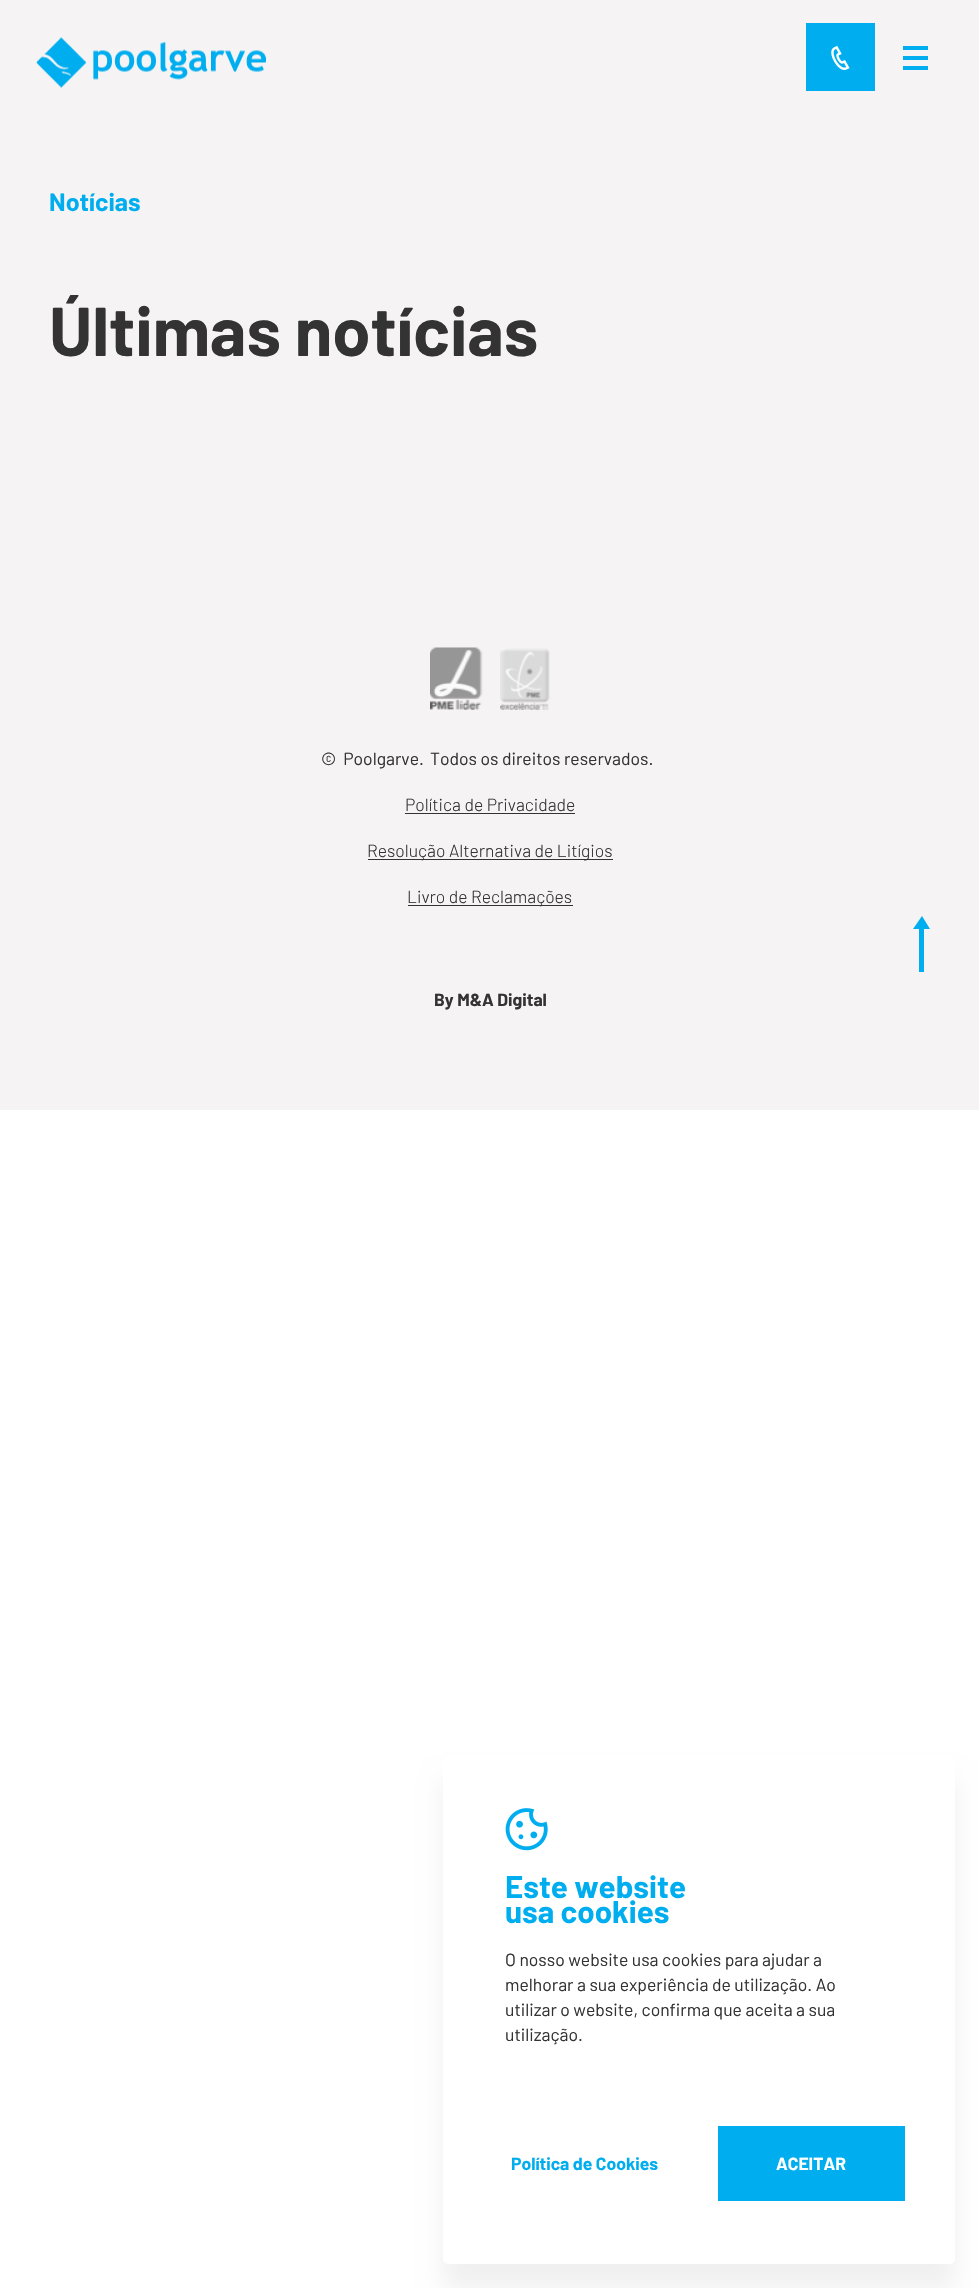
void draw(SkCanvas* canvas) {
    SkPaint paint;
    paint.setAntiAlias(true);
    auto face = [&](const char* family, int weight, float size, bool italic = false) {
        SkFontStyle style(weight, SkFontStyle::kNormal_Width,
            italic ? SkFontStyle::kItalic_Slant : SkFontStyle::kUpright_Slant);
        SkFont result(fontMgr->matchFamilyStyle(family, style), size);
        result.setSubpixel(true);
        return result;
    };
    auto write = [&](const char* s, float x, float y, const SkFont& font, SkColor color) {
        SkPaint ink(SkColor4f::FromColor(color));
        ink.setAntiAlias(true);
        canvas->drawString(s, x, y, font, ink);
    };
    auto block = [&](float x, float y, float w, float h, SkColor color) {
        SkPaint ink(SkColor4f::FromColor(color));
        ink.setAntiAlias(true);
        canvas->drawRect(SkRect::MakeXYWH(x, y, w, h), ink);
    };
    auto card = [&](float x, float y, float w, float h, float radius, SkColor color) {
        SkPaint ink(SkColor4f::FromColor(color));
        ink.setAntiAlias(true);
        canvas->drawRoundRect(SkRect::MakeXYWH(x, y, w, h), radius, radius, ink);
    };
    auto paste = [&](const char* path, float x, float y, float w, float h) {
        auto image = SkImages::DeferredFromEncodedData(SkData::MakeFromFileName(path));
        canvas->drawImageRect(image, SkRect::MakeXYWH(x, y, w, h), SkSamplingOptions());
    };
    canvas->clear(SK_ColorWHITE);
    block(0, 0, 979, 1110, SkColorSetRGB(245, 243, 243));
    paste("pic1.png", 36, 37, 230, 51);
    block(806, 23, 69, 68, SkColorSetRGB(0, 174, 239));
    paste("pic2.png", 831, 45, 19, 25);
    block(903, 56, 25, 4, SkColorSetRGB(0, 174, 239));
    block(903, 46, 25, 4, SkColorSetRGB(0, 174, 239));
    block(903, 66, 25, 4, SkColorSetRGB(0, 174, 239));
    auto kFont1 = face("Barlow", 700, 25);
    write("Notícias", 49, 211, kFont1, SkColorSetRGB(0, 174, 239));
    auto kFont2 = face("Barlow", 700, 68.75f);
    write("Últimas notícias", 49, 356, kFont2, SkColorSetRGB(51, 51, 51));
    paste("pic3.png", 430, 647, 53, 63);
    paste("pic4.png", 500, 648, 50, 62);
    auto kFont3 = face("Barlow", 400, 17.5f);
    write("©  Poolgarve.", 321, 765, kFont3, SkColorSetRGB(51, 51, 51));
    write("Todos os direitos reservados.", 430, 765, kFont3, SkColorSetRGB(51, 51, 51));
    auto kFont4 = face("Barlow", 300, 17.5f);
    write("Política de Privacidade", 405, 811, kFont4, SkColorSetRGB(51, 51, 51));
    block(405, 813, 170, 1, SkColorSetRGB(51, 51, 51));
    block(368, 859, 245, 1, SkColorSetRGB(51, 51, 51));
    write("Resolução Alternativa de Litígios", 367, 857, kFont4, SkColorSetRGB(51, 51, 51));
    block(408, 905, 165, 1, SkColorSetRGB(51, 51, 51));
    write("Livro de Reclamações", 407, 903, kFont4, SkColorSetRGB(51, 51, 51));
    paint.setColor(SkColorSetRGB(0, 174, 239));
    canvas->drawPath(SkPathBuilder().moveTo(913, 929).lineTo(922, 916).lineTo(930, 929).lineTo(924, 929).lineTo(924, 972).lineTo(919, 972).lineTo(919, 929).close().detach(), paint);
    auto kFont5 = face("Barlow", 700, 17.5f);
    write("By M&A Digital", 434, 1006, kFont5, SkColorSetRGB(51, 51, 51));
    paint.setColor(SkColorSetARGB(15, 0, 0, 0));
    paint.setMaskFilter(SkMaskFilter::MakeBlur(kNormal_SkBlurStyle, 12.5f));
    canvas->drawRoundRect(SkRect::MakeXYWH(443, 1780, 512, 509), 5, 5, paint);
    paint.setMaskFilter(nullptr);
    card(443, 1755, 512, 509, 5, SK_ColorWHITE);
    paste("pic5.png", 505, 1808, 43, 43);
    auto kFont6 = face("Barlow", 700, 31.25f);
    write("Este website", 505, 1898, kFont6, SkColorSetRGB(0, 174, 239));
    write("usa cookies", 505, 1923, kFont6, SkColorSetRGB(0, 174, 239));
    write("O nosso website usa cookies para ajudar a", 505, 1966, kFont3, SkColorSetRGB(51, 51, 51));
    write("melhorar a sua experiência de utilização. Ao", 505, 1991, kFont3, SkColorSetRGB(51, 51, 51));
    write("utilizar o website, confirma que aceita a sua", 505, 2016, kFont3, SkColorSetRGB(51, 51, 51));
    write("utilização.", 505, 2041, kFont3, SkColorSetRGB(51, 51, 51));
    write("Política de Cookies", 511, 2170, kFont5, SkColorSetRGB(0, 174, 239));
    block(718, 2126, 187, 75, SkColorSetRGB(0, 174, 239));
    write("ACEITAR", 776, 2170, kFont5, SK_ColorWHITE);
}
